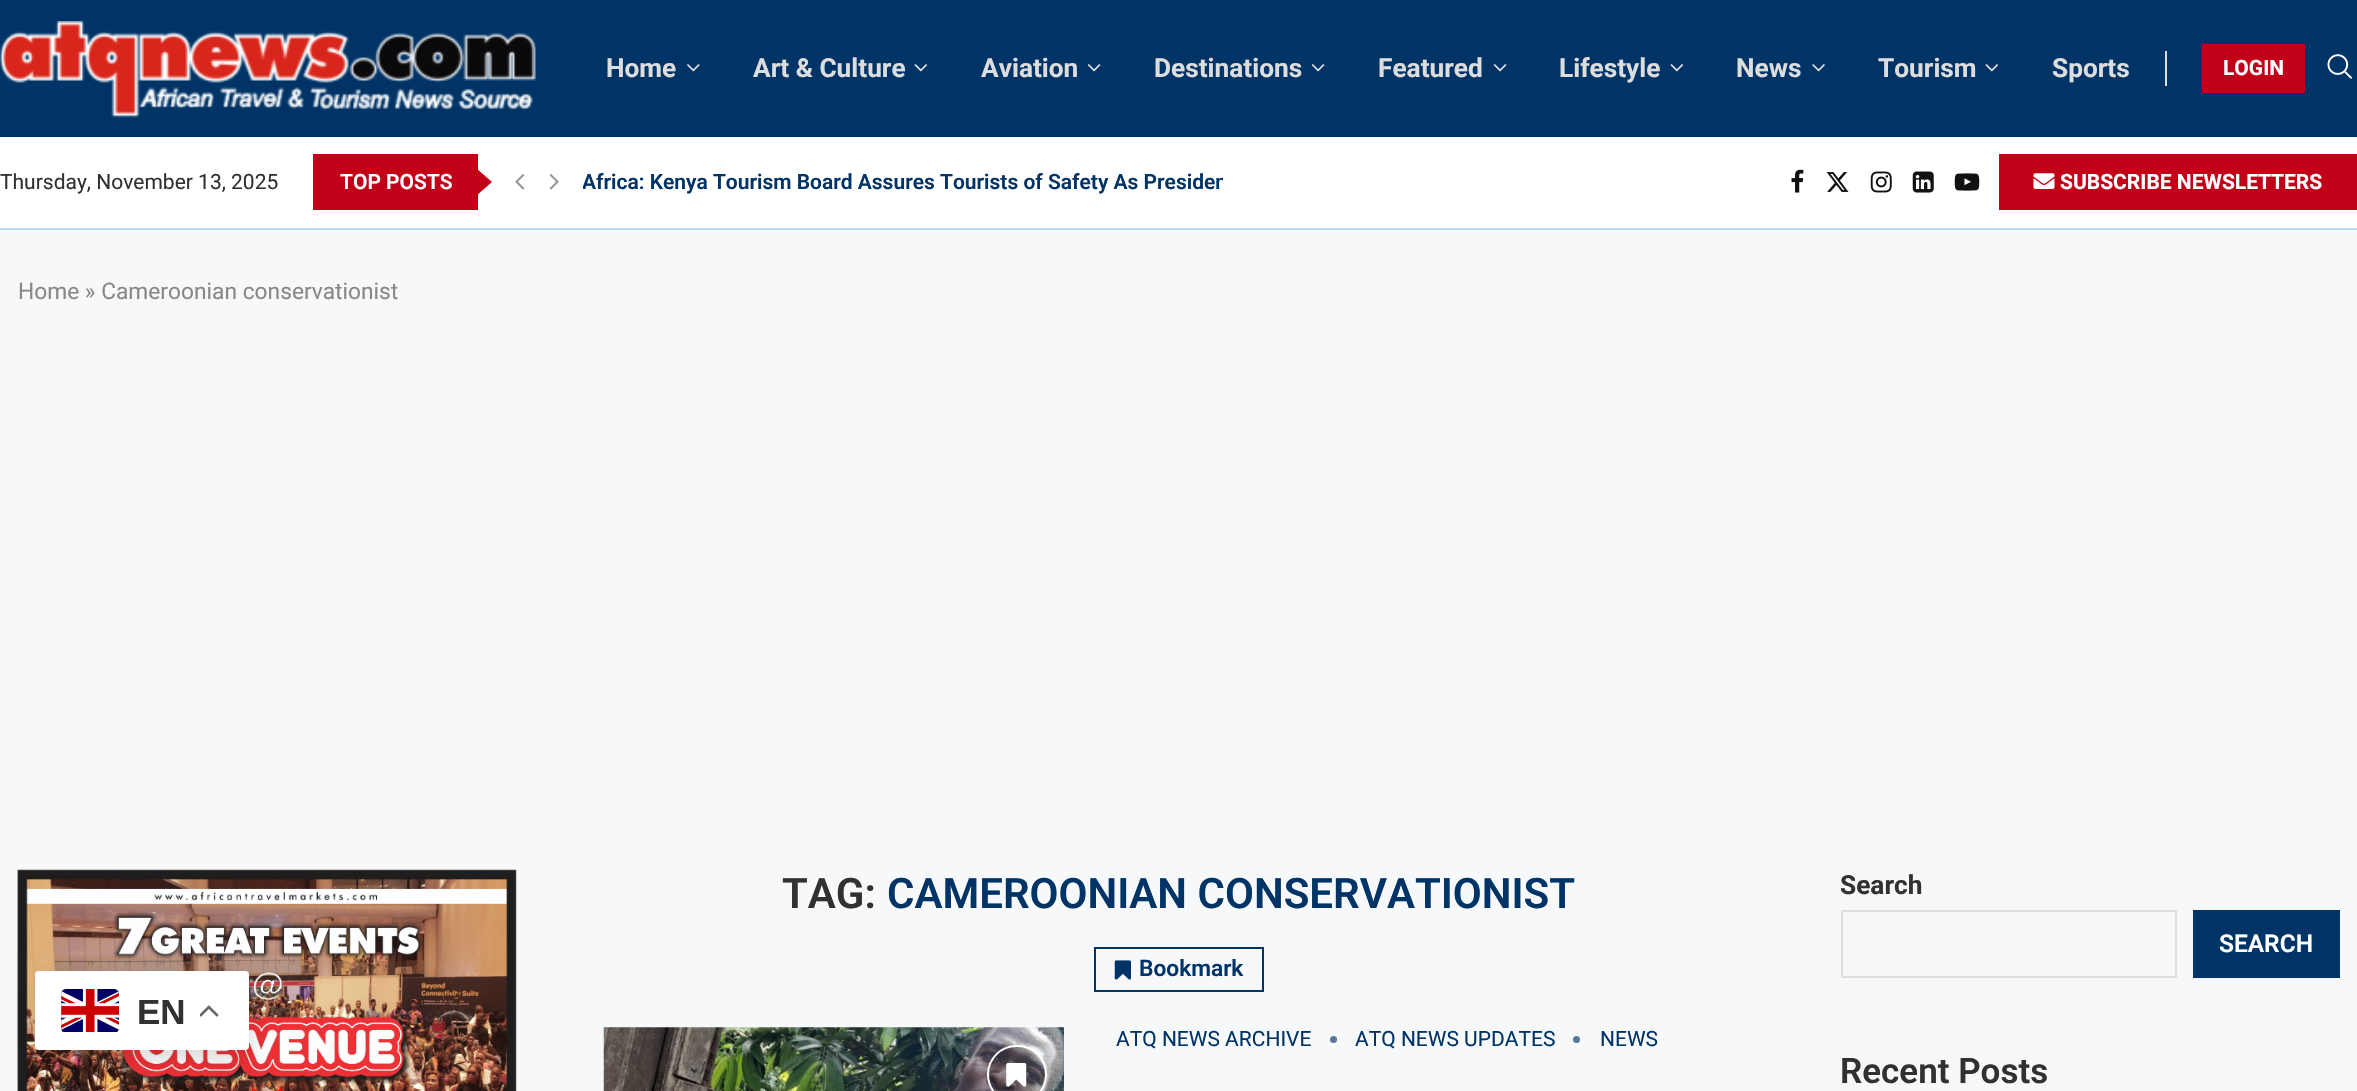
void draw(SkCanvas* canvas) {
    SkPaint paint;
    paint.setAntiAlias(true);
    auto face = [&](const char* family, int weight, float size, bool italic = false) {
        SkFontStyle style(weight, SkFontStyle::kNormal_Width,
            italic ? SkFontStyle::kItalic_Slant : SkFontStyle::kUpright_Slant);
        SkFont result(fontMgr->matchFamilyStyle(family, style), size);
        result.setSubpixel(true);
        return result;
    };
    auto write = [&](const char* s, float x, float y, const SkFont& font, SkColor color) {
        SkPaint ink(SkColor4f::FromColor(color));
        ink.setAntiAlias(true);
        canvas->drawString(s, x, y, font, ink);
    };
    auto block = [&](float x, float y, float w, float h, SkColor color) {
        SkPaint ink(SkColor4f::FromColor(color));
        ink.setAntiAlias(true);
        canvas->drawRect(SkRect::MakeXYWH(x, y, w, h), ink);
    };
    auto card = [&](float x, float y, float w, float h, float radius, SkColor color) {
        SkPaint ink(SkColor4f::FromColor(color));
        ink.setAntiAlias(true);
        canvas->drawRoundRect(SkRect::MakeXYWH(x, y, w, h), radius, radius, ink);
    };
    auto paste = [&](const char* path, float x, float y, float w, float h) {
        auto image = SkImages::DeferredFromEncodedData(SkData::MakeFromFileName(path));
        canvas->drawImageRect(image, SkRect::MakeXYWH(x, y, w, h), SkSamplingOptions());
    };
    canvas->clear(SkColorSetRGB(246, 248, 250));
    block(0, 0, 2357, 137, SkColorSetRGB(0, 51, 102));
    paste("pic1.png", 0, 21, 536, 97);
    auto kFont1 = face("Roboto", 700, 26.25f);
    write("Home", 606, 77, kFont1, SkColorSetRGB(221, 221, 221));
    paste("pic2.png", 687, 64, 13, 8);
    write("Art & Culture", 753, 77, kFont1, SkColorSetRGB(221, 221, 221));
    paste("pic3.png", 914, 64, 14, 8);
    write("Aviation", 981, 77, kFont1, SkColorSetRGB(221, 221, 221));
    paste("pic4.png", 1087, 64, 14, 8);
    write("Destinations", 1154, 77, kFont1, SkColorSetRGB(221, 221, 221));
    paste("pic4.png", 1311, 64, 14, 8);
    write("Featured", 1378, 77, kFont1, SkColorSetRGB(221, 221, 221));
    paste("pic4.png", 1493, 64, 14, 8);
    write("Lifestyle", 1559, 77, kFont1, SkColorSetRGB(221, 221, 221));
    paste("pic3.png", 1670, 64, 14, 8);
    write("News", 1736, 77, kFont1, SkColorSetRGB(221, 221, 221));
    paste("pic5.png", 1812, 64, 13, 8);
    write("Tourism", 1878, 77, kFont1, SkColorSetRGB(221, 221, 221));
    paste("pic3.png", 1985, 64, 14, 8);
    write("Sports", 2052, 77, kFont1, SkColorSetRGB(221, 221, 221));
    block(2165, 51, 2, 35, SkColorSetRGB(222, 222, 222));
    block(2202, 44, 103, 49, SkColorSetRGB(194, 0, 23));
    auto kFont2 = face("Roboto", 700, 21);
    write("LOGIN", 2223, 75, kFont2, SK_ColorWHITE);
    paste("pic6.png", 2327, 54, 25, 25);
    block(0, 137, 2357, 91, SK_ColorWHITE);
    block(0, 228, 2357, 2, SkColorSetRGB(186, 217, 248));
    auto kFont3 = face("Roboto", 400, 21);
    write("Thursday, November 13, 2025", 0, 189, kFont3, SkColorSetRGB(49, 49, 49));
    block(313, 154, 165, 56, SkColorSetRGB(194, 0, 23));
    auto kFont4 = face("Roboto", 600, 21);
    write("TOP POSTS", 340, 189, kFont4, SK_ColorWHITE);
    paint.setColor(SkColorSetRGB(194, 0, 23));
    canvas->drawPath(SkPathBuilder().moveTo(476, 196).lineTo(476, 168).lineTo(492, 182).close().detach(), paint);
    paste("pic7.png", 515, 174, 10, 16);
    paste("pic8.png", 549, 174, 10, 16);
    canvas->save();
    canvas->clipRect(SkRect::MakeXYWH(583, 154, 640, 56));
    write("Africa: Kenya Tourism Board Assures Tourists of Safety As Presiden", 582, 189, kFont4, SkColorSetRGB(0, 51, 102));
    canvas->restore();
    paste("pic9.png", 1791, 169, 13, 24);
    paste("pic10.png", 1826, 172, 23, 20);
    paste("pic11.png", 1870, 171, 22, 22);
    paste("pic12.png", 1912, 171, 22, 22);
    paste("pic13.png", 1954, 173, 26, 18);
    block(1999, 154, 358, 56, SkColorSetRGB(194, 0, 23));
    paste("pic14.png", 2033, 173, 22, 16);
    write("SUBSCRIBE NEWSLETTERS", 2060, 189, kFont2, SK_ColorWHITE);
    auto kFont5 = face("Roboto", 400, 22.75f);
    write("Home » Cameroonian conservationist", 18, 299, kFont5, SkColorSetRGB(136, 136, 136));
    paste("pic15.png", 17, 869, 500, 222);
    auto kFont6 = face("Roboto", 600, 42);
    write("TAG:", 782, 908, kFont6, SkColorSetRGB(49, 49, 49));
    write("CAMEROONIAN CONSERVATIONIST", 887, 908, kFont6, SkColorSetRGB(0, 51, 102));
    paint.setStyle(SkPaint::kStroke_Style);
    paint.setStrokeWidth(2);
    paint.setColor(SkColorSetRGB(0, 51, 102));
    canvas->drawRect(SkRect::MakeXYWH(1095, 948, 168, 43), paint);
    paste("pic16.png", 1114, 960, 17, 20);
    auto kFont7 = face("Roboto", 600, 22.75f);
    write("Bookmark", 1139, 976, kFont7, SkColorSetRGB(0, 51, 102));
    paste("pic17.png", 603, 1027, 461, 64);
    paint.setStyle(SkPaint::kFill_Style);
    paint.setColor(SkColorSetARGB(51, 0, 0, 0));
    canvas->drawRoundRect(SkRect::MakeXYWH(988, 1046, 58, 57), 28.5f, 28.5f, paint);
    paint.setStyle(SkPaint::kStroke_Style);
    paint.setColor(SK_ColorWHITE);
    canvas->drawRoundRect(SkRect::MakeXYWH(988, 1046, 58, 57), 28.5f, 28.5f, paint);
    paste("pic18.png", 1006, 1063, 21, 24);
    write("ATQ NEWS ARCHIVE", 1116, 1046, kFont3, SkColorSetRGB(0, 51, 102));
    paint.setStyle(SkPaint::kFill_Style);
    paint.setColor(SkColorSetRGB(86, 120, 154));
    canvas->drawCircle(1333.5f, 1039.5f, 3.5f, paint);
    write("ATQ NEWS UPDATES", 1355, 1046, kFont3, SkColorSetRGB(0, 51, 102));
    canvas->drawCircle(1576.5f, 1039.5f, 3.5f, paint);
    write("NEWS", 1600, 1046, kFont3, SkColorSetRGB(0, 51, 102));
    write("Search", 1840, 894, kFont1, SkColorSetRGB(49, 49, 49));
    paint.setStyle(SkPaint::kStroke_Style);
    paint.setColor(SkColorSetRGB(222, 222, 222));
    canvas->drawRect(SkRect::MakeXYWH(1842, 911, 334, 66), paint);
    block(2193, 910, 147, 68, SkColorSetRGB(0, 51, 102));
    auto kFont8 = face("Roboto", 600, 24.5f);
    write("SEARCH", 2219, 952, kFont8, SK_ColorWHITE);
    auto kFont9 = face("Roboto", 600, 35);
    write("Recent Posts", 1840, 1083, kFont9, SkColorSetRGB(49, 49, 49));
    paint.setStyle(SkPaint::kFill_Style);
    paint.setColor(SkColorSetARGB(38, 0, 0, 0));
    paint.setMaskFilter(SkMaskFilter::MakeBlur(kNormal_SkBlurStyle, 13));
    canvas->drawRoundRect(SkRect::MakeXYWH(35, 980, 214, 79), 4, 4, paint);
    paint.setMaskFilter(nullptr);
    card(35, 971, 214, 79, 4, SK_ColorWHITE);
    paste("pic19.png", 61, 989, 58, 44);
    auto kFont10 = face("Liberation Sans", 700, 35);
    write("EN", 137, 1024, kFont10, SkColorSetRGB(49, 49, 49));
    paste("pic20.png", 200, 1005, 19, 12);
}
